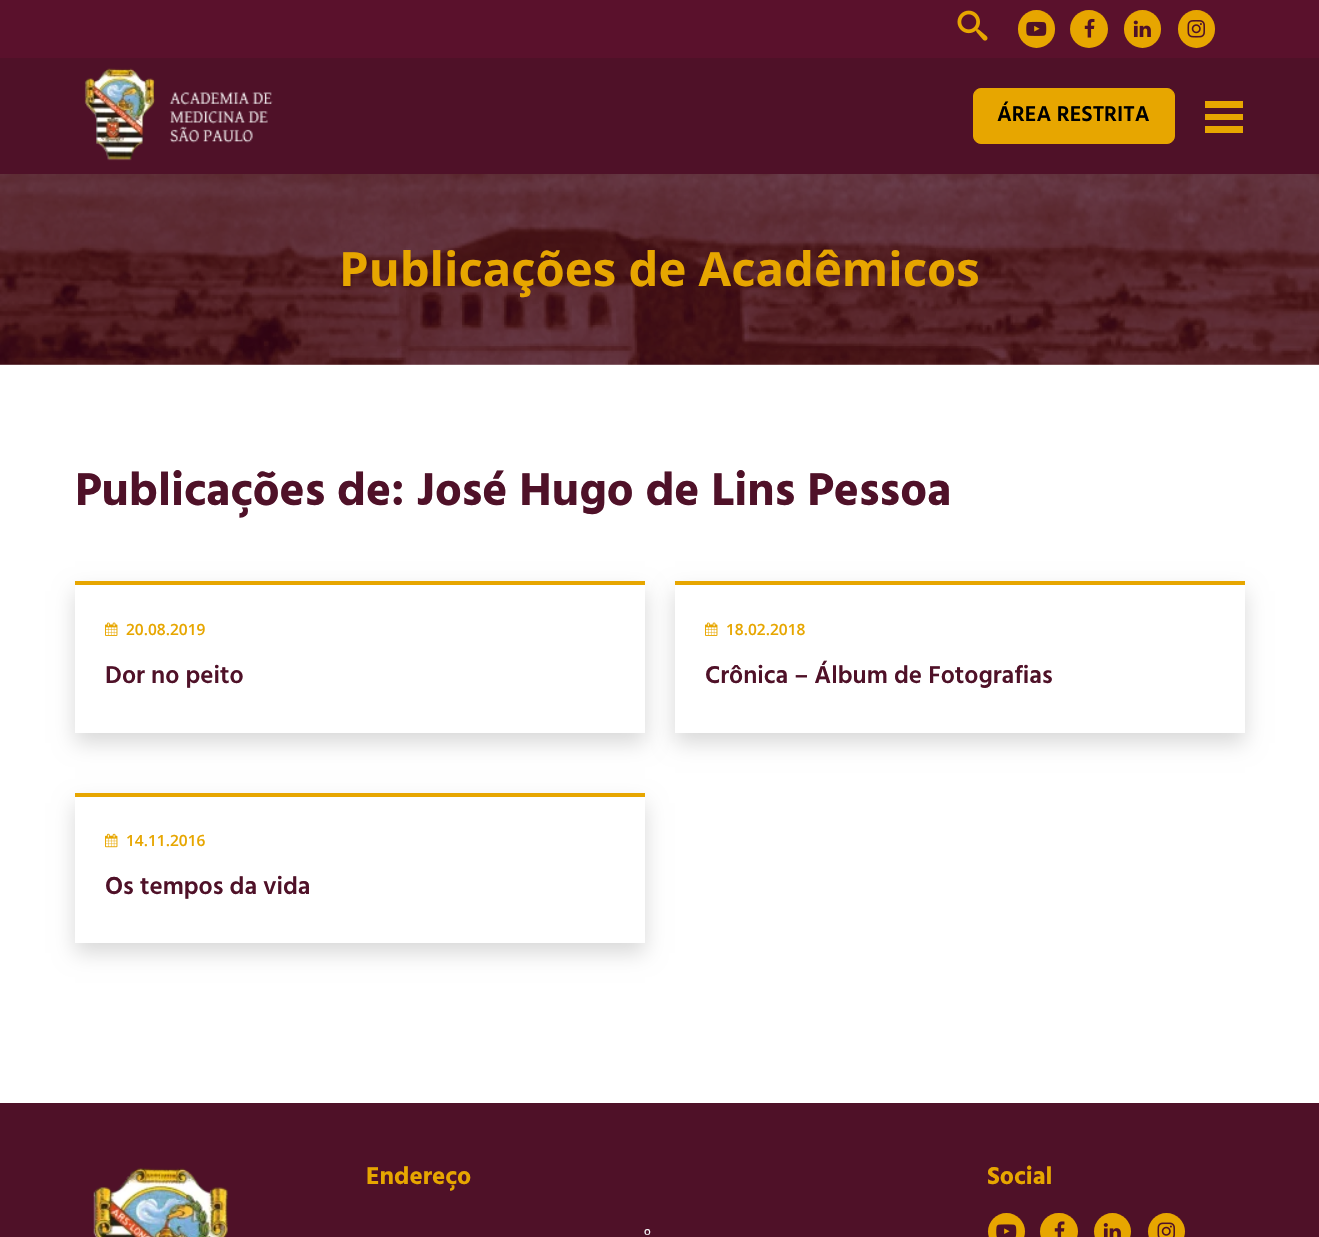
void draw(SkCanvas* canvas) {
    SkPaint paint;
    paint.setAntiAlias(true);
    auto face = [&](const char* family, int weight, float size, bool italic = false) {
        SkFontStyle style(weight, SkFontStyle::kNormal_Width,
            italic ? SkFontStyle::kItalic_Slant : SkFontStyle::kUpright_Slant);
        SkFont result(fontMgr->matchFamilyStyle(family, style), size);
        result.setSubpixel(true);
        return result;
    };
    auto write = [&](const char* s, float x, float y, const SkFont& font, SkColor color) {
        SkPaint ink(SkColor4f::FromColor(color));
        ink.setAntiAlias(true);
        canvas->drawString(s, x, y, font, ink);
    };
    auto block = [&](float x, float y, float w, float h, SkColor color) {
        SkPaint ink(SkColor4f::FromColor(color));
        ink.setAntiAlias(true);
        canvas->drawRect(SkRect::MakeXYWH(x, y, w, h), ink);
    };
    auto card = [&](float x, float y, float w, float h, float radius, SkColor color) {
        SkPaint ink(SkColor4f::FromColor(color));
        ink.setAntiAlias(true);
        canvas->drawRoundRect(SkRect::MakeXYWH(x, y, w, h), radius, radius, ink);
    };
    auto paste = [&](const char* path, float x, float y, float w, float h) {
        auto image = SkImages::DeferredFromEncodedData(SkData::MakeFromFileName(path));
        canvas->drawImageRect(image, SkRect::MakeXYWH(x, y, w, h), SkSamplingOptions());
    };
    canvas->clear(SK_ColorWHITE);
    block(0, 0, 1319, 58, SkColorSetRGB(90, 17, 44));
    paste("pic1.png", 957, 10, 31, 31);
    card(1018, 10, 37, 38, 18.5f, SkColorSetRGB(231, 166, 0));
    paste("pic2.png", 1026, 21, 21, 15);
    paint.setColor(SkColorSetRGB(231, 166, 0));
    canvas->drawCircle(1089, 29, 19, paint);
    paste("pic3.png", 1084, 18, 11, 20);
    card(1124, 10, 37, 38, 18.5f, SkColorSetRGB(231, 166, 0));
    paste("pic4.png", 1133, 20, 18, 17);
    card(1178, 10, 37, 38, 18.5f, SkColorSetRGB(231, 166, 0));
    paste("pic5.png", 1187, 20, 18, 18);
    block(0, 58, 1319, 116, SkColorSetRGB(79, 17, 40));
    paste("pic6.png", 84, 68, 189, 93);
    canvas->drawRoundRect(SkRect::MakeXYWH(973.5f, 88.5f, 201, 55), 7.5f, 7.5f, paint);
    paint.setStyle(SkPaint::kStroke_Style);
    paint.setStrokeWidth(1);
    canvas->drawRoundRect(SkRect::MakeXYWH(973.5f, 88.5f, 201, 55), 7.5f, 7.5f, paint);
    auto kFont1 = face("Hind", 600, 22);
    write("ÁREA RESTRITA", 997, 121, kFont1, SK_ColorBLACK);
    block(1205, 101, 38, 7, SkColorSetRGB(231, 166, 0));
    block(1205, 114, 38, 6, SkColorSetRGB(231, 166, 0));
    block(1205, 126, 38, 7, SkColorSetRGB(231, 166, 0));
    paste("pic7.png", 0, 174, 1319, 191);
    auto kFont2 = face("Open Sans", 700, 47.25f);
    write("Publicações de Acadêmicos", 339, 286, kFont2, SkColorSetRGB(231, 166, 0));
    auto kFont3 = face("Hind", 700, 47.25f);
    write("Publicações de: José Hugo de Lins Pessoa", 75, 505, kFont3, SkColorSetRGB(79, 17, 40));
    canvas->save();
    canvas->clipPath(SkPathBuilder(SkPathFillType::kEvenOdd).moveTo(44, 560).lineTo(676, 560).lineTo(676, 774).lineTo(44, 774).close().moveTo(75, 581).lineTo(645, 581).lineTo(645, 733).lineTo(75, 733).close().detach(), true);
    paint.setStyle(SkPaint::kFill_Style);
    paint.setColor(SkColorSetARGB(38, 0, 0, 0));
    paint.setMaskFilter(SkMaskFilter::MakeBlur(kNormal_SkBlurStyle, 10));
    canvas->drawRect(SkRect::MakeXYWH(75, 591, 570, 152), paint);
    paint.setMaskFilter(nullptr);
    canvas->restore();
    block(75, 581, 570, 4, SkColorSetRGB(231, 166, 0));
    paste("pic8.png", 105, 622, 13, 14);
    auto kFont4 = face("Open Sans", 600, 15.5f);
    write("20.08.2019", 126, 635, kFont4, SkColorSetRGB(231, 166, 0));
    auto kFont5 = face("Hind", 600, 25);
    write("Dor no peito", 105, 683, kFont5, SkColorSetRGB(79, 17, 40));
    canvas->save();
    canvas->clipPath(SkPathBuilder(SkPathFillType::kEvenOdd).moveTo(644, 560).lineTo(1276, 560).lineTo(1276, 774).lineTo(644, 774).close().moveTo(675, 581).lineTo(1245, 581).lineTo(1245, 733).lineTo(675, 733).close().detach(), true);
    paint.setMaskFilter(SkMaskFilter::MakeBlur(kNormal_SkBlurStyle, 10));
    canvas->drawRect(SkRect::MakeXYWH(675, 591, 570, 152), paint);
    paint.setMaskFilter(nullptr);
    canvas->restore();
    block(675, 581, 570, 4, SkColorSetRGB(231, 166, 0));
    paste("pic8.png", 705, 622, 13, 14);
    write("18.02.2018", 726, 635, kFont4, SkColorSetRGB(231, 166, 0));
    write("Crônica – Álbum de Fotografias", 705, 683, kFont5, SkColorSetRGB(79, 17, 40));
    canvas->save();
    canvas->clipPath(SkPathBuilder(SkPathFillType::kEvenOdd).moveTo(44, 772).lineTo(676, 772).lineTo(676, 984).lineTo(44, 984).close().moveTo(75, 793).lineTo(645, 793).lineTo(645, 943).lineTo(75, 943).close().detach(), true);
    paint.setMaskFilter(SkMaskFilter::MakeBlur(kNormal_SkBlurStyle, 10));
    canvas->drawRect(SkRect::MakeXYWH(75, 803, 570, 150), paint);
    paint.setMaskFilter(nullptr);
    canvas->restore();
    block(75, 793, 570, 4, SkColorSetRGB(231, 166, 0));
    paste("pic9.png", 105, 833, 13, 15);
    write("14.11.2016", 126, 846, kFont4, SkColorSetRGB(231, 166, 0));
    write("Os tempos da vida", 105, 894, kFont5, SkColorSetRGB(79, 17, 40));
    block(0, 1103, 1319, 134, SkColorSetRGB(79, 17, 40));
    paste("pic10.png", 93, 1168, 135, 69);
    auto kFont6 = face("Hind", 700, 25);
    write("Endereço", 366, 1184, kFont6, SkColorSetRGB(231, 166, 0));
    auto kFont7 = face("Open Sans", 400, 18);
    write("º", 644, 1242, kFont7, SkColorSetRGB(248, 249, 250));
    write("Social", 987, 1184, kFont6, SkColorSetRGB(231, 166, 0));
    paint.setColor(SkColorSetRGB(231, 166, 0));
    canvas->drawCircle(1006.5f, 1231.5f, 18.5f, paint);
    paste("pic11.png", 996, 1224, 21, 13);
    card(1040, 1213, 38, 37, 18.5f, SkColorSetRGB(231, 166, 0));
    paste("pic12.png", 1054, 1221, 11, 16);
    canvas->drawCircle(1112.5f, 1231.5f, 18.5f, paint);
    paste("pic13.png", 1103, 1223, 18, 14);
    canvas->drawCircle(1166.5f, 1231.5f, 18.5f, paint);
    paste("pic14.png", 1157, 1222, 18, 15);
}
